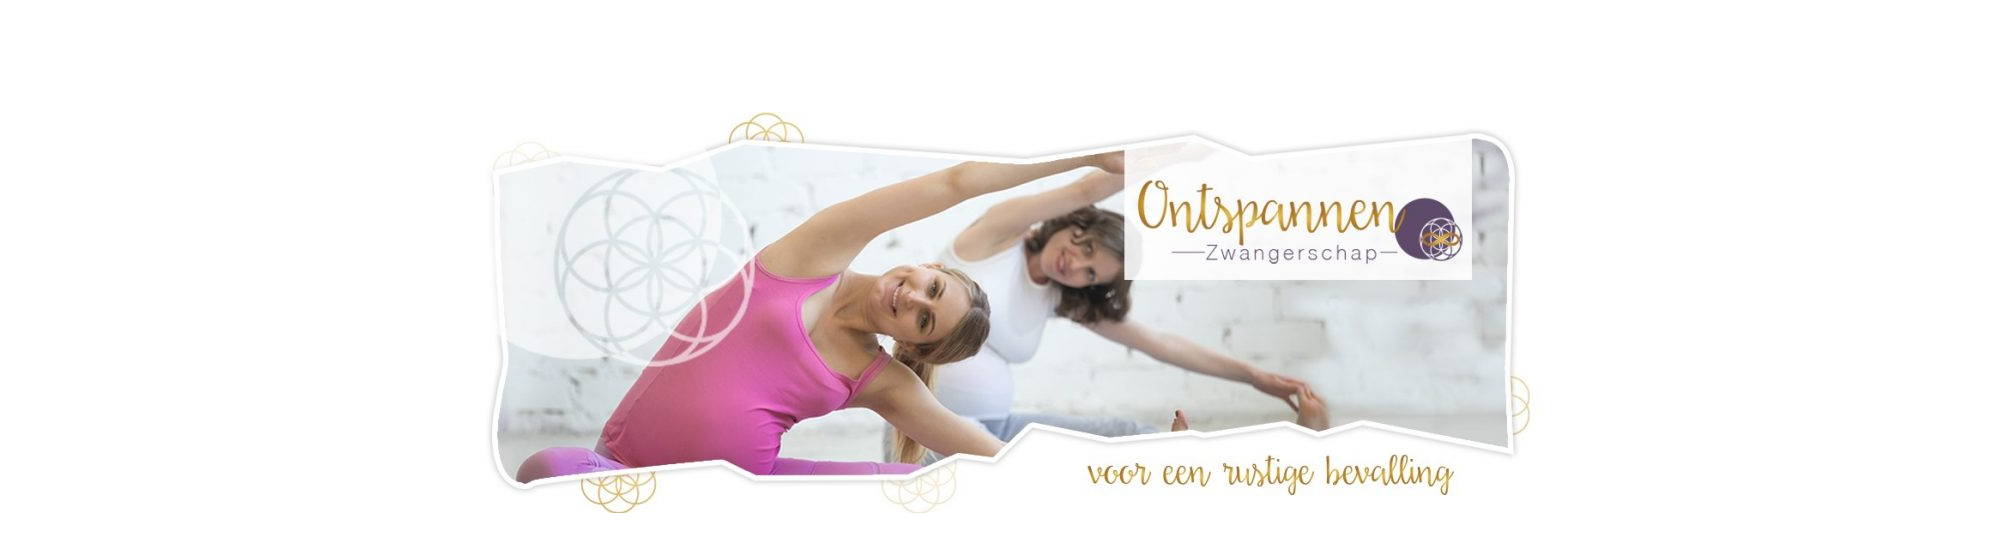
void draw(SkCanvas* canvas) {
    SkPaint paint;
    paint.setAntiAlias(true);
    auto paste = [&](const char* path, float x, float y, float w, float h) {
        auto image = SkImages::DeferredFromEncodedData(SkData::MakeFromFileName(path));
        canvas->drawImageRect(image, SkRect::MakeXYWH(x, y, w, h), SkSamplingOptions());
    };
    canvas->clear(SK_ColorWHITE);
    paste("pic1.png", 486, 112, 1054, 401);
}
